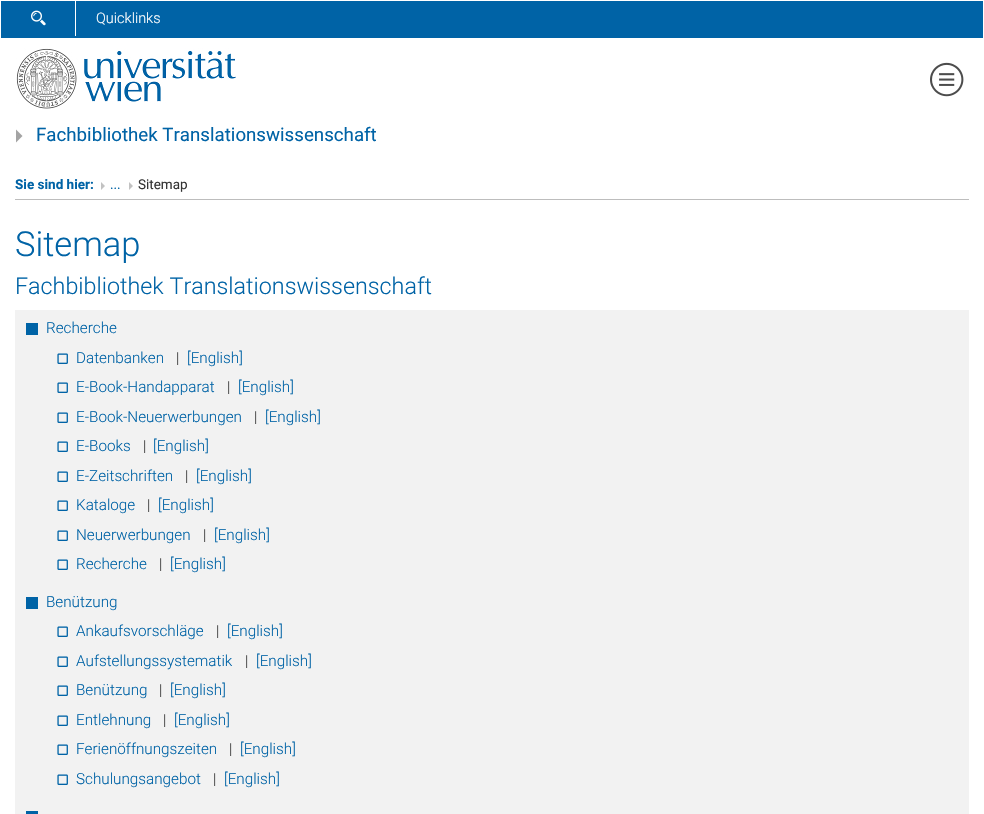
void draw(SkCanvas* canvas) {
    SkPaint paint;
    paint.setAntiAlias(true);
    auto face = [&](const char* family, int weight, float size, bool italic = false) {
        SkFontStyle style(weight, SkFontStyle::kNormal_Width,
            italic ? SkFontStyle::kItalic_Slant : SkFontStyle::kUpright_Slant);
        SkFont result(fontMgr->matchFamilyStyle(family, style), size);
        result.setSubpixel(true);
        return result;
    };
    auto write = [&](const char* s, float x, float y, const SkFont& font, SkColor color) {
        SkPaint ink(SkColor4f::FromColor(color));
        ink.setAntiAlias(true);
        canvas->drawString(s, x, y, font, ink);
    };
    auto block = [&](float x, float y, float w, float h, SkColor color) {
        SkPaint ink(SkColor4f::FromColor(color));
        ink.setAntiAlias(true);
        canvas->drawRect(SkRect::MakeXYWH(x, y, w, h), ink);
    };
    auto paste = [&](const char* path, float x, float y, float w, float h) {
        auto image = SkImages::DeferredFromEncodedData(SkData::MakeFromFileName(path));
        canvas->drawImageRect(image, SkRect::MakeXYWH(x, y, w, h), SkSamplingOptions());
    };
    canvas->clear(SK_ColorWHITE);
    block(1, 1, 982, 37, SkColorSetRGB(0, 99, 166));
    block(75, 1, 1, 35, SK_ColorWHITE);
    paste("pic1.png", 31, 10, 15, 16);
    auto kFont1 = face("Roboto", 300, 14.5f);
    write("Quicklinks", 96, 23, kFont1, SK_ColorWHITE);
    paste("pic2.png", 16, 48, 220, 61);
    paste("pic3.png", 930, 62, 34, 35);
    paint.setColor(SkColorSetRGB(164, 164, 164));
    canvas->drawPath(SkPathBuilder().moveTo(16, 129.5f).lineTo(16, 142.5f).lineTo(22.5f, 136).close().detach(), paint);
    auto kFont2 = face("Roboto", 400, 18.7f);
    write("Fachbibliothek Translationswissenschaft", 36, 141, kFont2, SkColorSetRGB(0, 99, 166));
    auto kFont3 = face("Roboto", 700, 13.5f);
    write("Sie sind hier:", 15, 189, kFont3, SkColorSetRGB(0, 99, 166));
    auto kFont4 = face("Roboto", 400, 13.5f);
    write("...", 110, 189, kFont4, SkColorSetRGB(0, 99, 166));
    paint.setColor(SkColorSetRGB(194, 194, 194));
    canvas->drawPath(SkPathBuilder().moveTo(101, 182).lineTo(101, 190).lineTo(105, 186).close().detach(), paint);
    write("Sitemap", 138, 189, kFont4, SkColorSetRGB(51, 51, 51));
    canvas->drawPath(SkPathBuilder().moveTo(129, 182).lineTo(129, 190).lineTo(133, 186).close().detach(), paint);
    block(15, 199, 954, 1, SkColorSetRGB(189, 189, 189));
    auto kFont5 = face("Roboto", 300, 34.5f);
    write("Sitemap", 15, 256, kFont5, SkColorSetRGB(0, 99, 166));
    auto kFont6 = face("Roboto", 300, 23.3f);
    write("Fachbibliothek Translationswissenschaft", 15, 294, kFont6, SkColorSetRGB(0, 99, 166));
    block(15, 310, 954, 504, SkColorSetRGB(242, 242, 242));
    block(26, 323, 12, 12, SkColorSetRGB(0, 99, 166));
    auto kFont7 = face("Roboto", 300, 15.25f);
    write("Recherche", 46, 333, kFont7, SkColorSetRGB(0, 99, 166));
    paste("pic4.png", 57, 353, 11, 11);
    write("Datenbanken", 76, 363, kFont7, SkColorSetRGB(0, 99, 166));
    write("|", 176, 363, kFont7, SkColorSetRGB(51, 51, 51));
    write("[English]", 187, 363, kFont7, SkColorSetRGB(0, 99, 166));
    paste("pic4.png", 57, 382, 11, 11);
    write("E-Book-Handapparat", 76, 392, kFont7, SkColorSetRGB(0, 99, 166));
    write("|", 227, 392, kFont7, SkColorSetRGB(51, 51, 51));
    write("[English]", 238, 392, kFont7, SkColorSetRGB(0, 99, 166));
    paste("pic4.png", 57, 412, 11, 11);
    write("E-Book-Neuerwerbungen", 76, 422, kFont7, SkColorSetRGB(0, 99, 166));
    write("|", 254, 422, kFont7, SkColorSetRGB(51, 51, 51));
    write("[English]", 265, 422, kFont7, SkColorSetRGB(0, 99, 166));
    paste("pic4.png", 57, 441, 11, 11);
    write("E-Books", 76, 451, kFont7, SkColorSetRGB(0, 99, 166));
    write("|", 143, 451, kFont7, SkColorSetRGB(51, 51, 51));
    write("[English]", 153, 451, kFont7, SkColorSetRGB(0, 99, 166));
    paste("pic4.png", 57, 471, 11, 11);
    write("E-Zeitschriften", 76, 481, kFont7, SkColorSetRGB(0, 99, 166));
    write("|", 185, 481, kFont7, SkColorSetRGB(51, 51, 51));
    write("[English]", 196, 481, kFont7, SkColorSetRGB(0, 99, 166));
    paste("pic4.png", 57, 500, 11, 11);
    write("Kataloge", 76, 510, kFont7, SkColorSetRGB(0, 99, 166));
    write("|", 147, 510, kFont7, SkColorSetRGB(51, 51, 51));
    write("[English]", 158, 510, kFont7, SkColorSetRGB(0, 99, 166));
    paste("pic4.png", 57, 530, 11, 11);
    write("Neuerwerbungen", 76, 540, kFont7, SkColorSetRGB(0, 99, 166));
    write("|", 203, 540, kFont7, SkColorSetRGB(51, 51, 51));
    write("[English]", 214, 540, kFont7, SkColorSetRGB(0, 99, 166));
    paste("pic4.png", 57, 559, 11, 11);
    write("Recherche", 76, 569, kFont7, SkColorSetRGB(0, 99, 166));
    write("|", 159, 569, kFont7, SkColorSetRGB(51, 51, 51));
    write("[English]", 170, 569, kFont7, SkColorSetRGB(0, 99, 166));
    block(26, 597, 12, 12, SkColorSetRGB(0, 99, 166));
    write("Benützung", 46, 607, kFont7, SkColorSetRGB(0, 99, 166));
    paste("pic4.png", 57, 626, 11, 11);
    write("Ankaufsvorschläge", 76, 636, kFont7, SkColorSetRGB(0, 99, 166));
    write("|", 216, 636, kFont7, SkColorSetRGB(51, 51, 51));
    write("[English]", 227, 636, kFont7, SkColorSetRGB(0, 99, 166));
    paste("pic4.png", 57, 656, 11, 11);
    write("Aufstellungssystematik", 76, 666, kFont7, SkColorSetRGB(0, 99, 166));
    write("|", 245, 666, kFont7, SkColorSetRGB(51, 51, 51));
    write("[English]", 256, 666, kFont7, SkColorSetRGB(0, 99, 166));
    paste("pic4.png", 57, 685, 11, 11);
    write("Benützung", 76, 695, kFont7, SkColorSetRGB(0, 99, 166));
    write("|", 159, 695, kFont7, SkColorSetRGB(51, 51, 51));
    write("[English]", 170, 695, kFont7, SkColorSetRGB(0, 99, 166));
    paste("pic4.png", 57, 715, 11, 11);
    write("Entlehnung", 76, 725, kFont7, SkColorSetRGB(0, 99, 166));
    write("|", 163, 725, kFont7, SkColorSetRGB(51, 51, 51));
    write("[English]", 174, 725, kFont7, SkColorSetRGB(0, 99, 166));
    paste("pic4.png", 57, 744, 11, 11);
    write("Ferienöffnungszeiten", 76, 754, kFont7, SkColorSetRGB(0, 99, 166));
    write("|", 229, 754, kFont7, SkColorSetRGB(51, 51, 51));
    write("[English]", 240, 754, kFont7, SkColorSetRGB(0, 99, 166));
    paste("pic4.png", 57, 774, 11, 11);
    write("Schulungsangebot", 76, 784, kFont7, SkColorSetRGB(0, 99, 166));
    write("|", 213, 784, kFont7, SkColorSetRGB(51, 51, 51));
    write("[English]", 224, 784, kFont7, SkColorSetRGB(0, 99, 166));
    block(26, 811, 12, 3, SkColorSetRGB(0, 99, 166));
}
